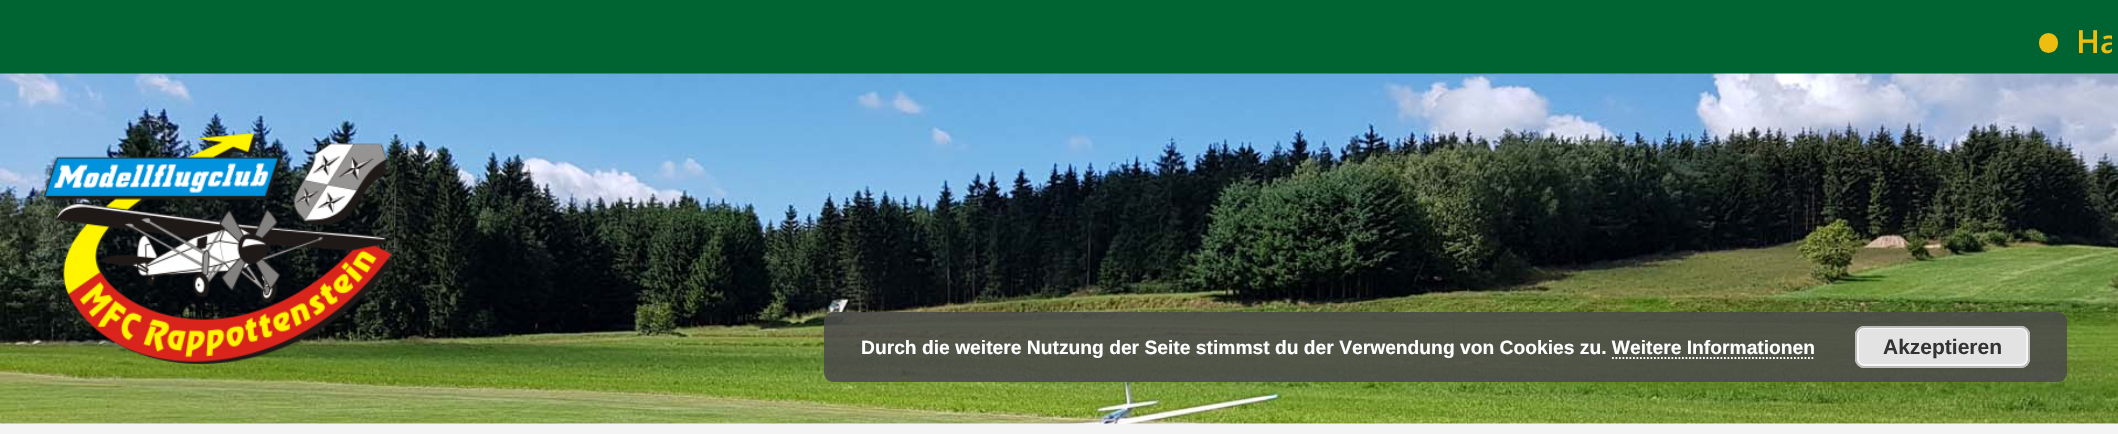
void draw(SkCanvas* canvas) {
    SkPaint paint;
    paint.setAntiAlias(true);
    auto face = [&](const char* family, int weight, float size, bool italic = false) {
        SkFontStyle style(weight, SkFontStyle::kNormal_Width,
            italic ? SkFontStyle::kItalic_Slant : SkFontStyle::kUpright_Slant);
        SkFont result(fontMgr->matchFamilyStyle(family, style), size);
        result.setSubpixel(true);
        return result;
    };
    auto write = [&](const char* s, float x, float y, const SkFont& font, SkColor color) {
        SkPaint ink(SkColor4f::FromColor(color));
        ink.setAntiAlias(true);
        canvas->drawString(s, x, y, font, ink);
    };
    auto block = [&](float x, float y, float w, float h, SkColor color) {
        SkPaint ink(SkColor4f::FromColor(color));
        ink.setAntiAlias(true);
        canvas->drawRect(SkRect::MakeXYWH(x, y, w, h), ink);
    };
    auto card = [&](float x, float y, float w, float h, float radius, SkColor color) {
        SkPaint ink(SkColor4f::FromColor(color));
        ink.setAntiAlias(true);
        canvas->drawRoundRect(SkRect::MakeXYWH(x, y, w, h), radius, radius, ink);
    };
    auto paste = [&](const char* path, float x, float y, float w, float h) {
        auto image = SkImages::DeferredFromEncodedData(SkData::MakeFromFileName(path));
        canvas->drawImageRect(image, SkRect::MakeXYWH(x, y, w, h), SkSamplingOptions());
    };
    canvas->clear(SK_ColorWHITE);
    block(0, 0, 2118, 74, SkColorSetRGB(0, 100, 50));
    card(2039, 33, 19, 20, 9.5f, SkColorSetRGB(239, 189, 16));
    canvas->save();
    canvas->clipRect(SkRect::MakeXYWH(7, 12, 2105, 56));
    auto kFont1 = face("Open Sans", 600, 32);
    write("Ha", 2076, 53, kFont1, SkColorSetRGB(239, 189, 16));
    canvas->restore();
    paste("pic1.png", 0, 73, 2118, 351);
    paste("pic2.png", 43, 133, 351, 231);
    block(0, 424, 2118, 10, SkColorSetRGB(244, 244, 244));
    card(824, 312, 1243, 70, 9, SkColorSetARGB(217, 73, 73, 73));
    auto kFont2 = face("Liberation Sans", 700, 19.25f);
    write("Durch die weitere Nutzung der Seite stimmst du der Verwendung von Cookies zu. Weitere Informationen", 861, 354, kFont2, SK_ColorWHITE);
    card(1855, 326, 175, 42, 9, SkColorSetRGB(227, 227, 227));
    paint.setStyle(SkPaint::kStroke_Style);
    paint.setStrokeWidth(2);
    paint.setColor(SkColorSetRGB(246, 246, 246));
    canvas->drawRoundRect(SkRect::MakeXYWH(1858, 328, 169, 37), 6, 6, paint);
    paint.setColor(SkColorSetRGB(187, 187, 187));
    canvas->drawRoundRect(SkRect::MakeXYWH(1856, 327, 173, 40), 8, 8, paint);
    auto kFont3 = face("Liberation Sans", 700, 21);
    write("Akzeptieren", 1883, 354, kFont3, SkColorSetRGB(51, 51, 51));
    paint.setStrokeWidth(1.8f);
    paint.setColor(SK_ColorWHITE);
    paint.setPathEffect(SkDashPathEffect::Make({{1.75f, 1.75f}}, 0));
    canvas->drawPath(SkPathBuilder().moveTo(1612, 358).lineTo(1815, 358).detach(), paint);
    paint.setPathEffect(nullptr);
}
